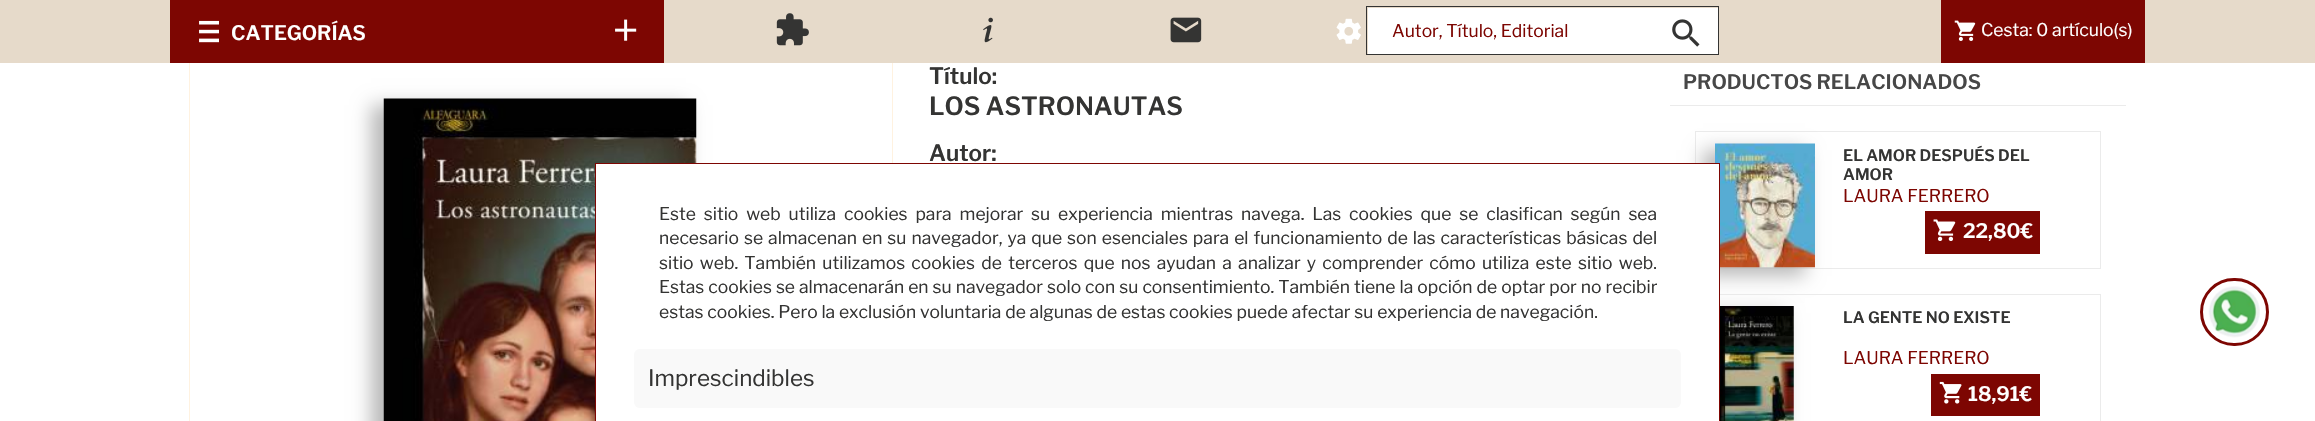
void draw(SkCanvas* canvas) {
    SkPaint paint;
    paint.setAntiAlias(true);
    auto face = [&](const char* family, int weight, float size, bool italic = false) {
        SkFontStyle style(weight, SkFontStyle::kNormal_Width,
            italic ? SkFontStyle::kItalic_Slant : SkFontStyle::kUpright_Slant);
        SkFont result(fontMgr->matchFamilyStyle(family, style), size);
        result.setSubpixel(true);
        return result;
    };
    auto write = [&](const char* s, float x, float y, const SkFont& font, SkColor color) {
        SkPaint ink(SkColor4f::FromColor(color));
        ink.setAntiAlias(true);
        canvas->drawString(s, x, y, font, ink);
    };
    auto writeSpaced = [&](const char* s, float x, float y, const SkFont& font, const SkPaint& ink, float letter, float word) {
        std::vector<SkGlyphID> glyphs(font.countText(s, strlen(s), SkTextEncoding::kUTF8));
        std::vector<float> xs(glyphs.size());
        font.textToGlyphs(s, strlen(s), SkTextEncoding::kUTF8, glyphs);
        font.getXPos(glyphs, xs, x);
        float extra = 0;
        for (size_t i = 0; i < glyphs.size(); i++) {
            xs[i] += extra;
            extra += letter + word * (glyphs[i] == font.unicharToGlyph(' '));
        }
        canvas->drawTextBlob(SkTextBlob::MakeFromPosHGlyphs(glyphs, xs, y, font), 0, 0, ink);
    };
    auto block = [&](float x, float y, float w, float h, SkColor color) {
        SkPaint ink(SkColor4f::FromColor(color));
        ink.setAntiAlias(true);
        canvas->drawRect(SkRect::MakeXYWH(x, y, w, h), ink);
    };
    auto card = [&](float x, float y, float w, float h, float radius, SkColor color) {
        SkPaint ink(SkColor4f::FromColor(color));
        ink.setAntiAlias(true);
        canvas->drawRoundRect(SkRect::MakeXYWH(x, y, w, h), radius, radius, ink);
    };
    auto paste = [&](const char* path, float x, float y, float w, float h) {
        auto image = SkImages::DeferredFromEncodedData(SkData::MakeFromFileName(path));
        canvas->drawImageRect(image, SkRect::MakeXYWH(x, y, w, h), SkSamplingOptions());
    };
    canvas->clear(SK_ColorWHITE);
    paint.setStyle(SkPaint::kStroke_Style);
    paint.setStrokeWidth(1);
    paint.setColor(SkColorSetRGB(255, 242, 224));
    canvas->drawRect(SkRect::MakeXYWH(189.5f, 60.5f, 703, 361), paint);
    block(0, 0, 2315, 63, SkColorSetRGB(230, 218, 202));
    block(170, 0, 494, 63, SkColorSetRGB(125, 6, 2));
    paste("pic1.png", 199, 20, 20, 23);
    auto kFont1 = face("Libre Franklin", 600, 20);
    write("CATEGORÍAS", 231, 40, kFont1, SK_ColorWHITE);
    paste("pic2.png", 615, 19, 22, 22);
    paste("pic3.png", 776, 13, 33, 33);
    paste("pic4.png", 983, 17, 10, 26);
    paste("pic5.png", 1170, 17, 32, 26);
    block(1941, 0, 204, 63, SkColorSetRGB(125, 6, 2));
    paste("pic6.png", 1954, 20, 22, 21);
    auto kFont2 = face("Libre Franklin", 400, 17.5f);
    write("Cesta: 0 artículo(s)", 1981, 36, kFont2, SK_ColorWHITE);
    paint.setColor(SkColorSetRGB(52, 52, 51));
    canvas->drawRect(SkRect::MakeXYWH(1366.5f, 6.5f, 352, 48), paint);
    paste("pic7.png", 1336, 18, 25, 26);
    block(1368, 8, 350, 46, SK_ColorWHITE);
    write("Autor, Título, Editorial", 1392, 37, kFont2, SkColorSetRGB(125, 6, 2));
    paste("pic8.png", 1672, 19, 28, 28);
    paint.setStyle(SkPaint::kFill_Style);
    paint.setColor(SkColorSetRGB(185, 185, 185));
    paint.setMaskFilter(SkMaskFilter::MakeBlur(kNormal_SkBlurStyle, 9));
    canvas->drawRect(SkRect::MakeXYWH(371, 105, 315, 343), paint);
    paint.setMaskFilter(nullptr);
    paste("pic9.png", 383, 98, 314, 323);
    auto kFont3 = face("Libre Franklin", 600, 22.5f);
    write("Título:", 929, 84, kFont3, SkColorSetRGB(52, 52, 51));
    auto kFont4 = face("Libre Franklin", 600, 25);
    write("LOS ASTRONAUTAS", 929, 115, kFont4, SkColorSetRGB(52, 52, 51));
    write("Autor:", 929, 161, kFont3, SkColorSetRGB(52, 52, 51));
    block(1670, 105, 456, 1, SkColorSetRGB(235, 235, 235));
    write("PRODUCTOS RELACIONADOS", 1683, 89, kFont1, SkColorSetRGB(71, 71, 71));
    paint.setStyle(SkPaint::kStroke_Style);
    paint.setColor(SkColorSetRGB(235, 235, 235));
    canvas->drawRect(SkRect::MakeXYWH(1695.5f, 131.5f, 405, 137), paint);
    paint.setStyle(SkPaint::kFill_Style);
    paint.setColor(SkColorSetRGB(185, 185, 185));
    paint.setMaskFilter(SkMaskFilter::MakeBlur(kNormal_SkBlurStyle, 9));
    canvas->drawRect(SkRect::MakeXYWH(1703, 150, 102, 126), paint);
    paint.setMaskFilter(nullptr);
    paste("pic10.png", 1715, 143, 100, 125);
    auto kFont5 = face("Libre Franklin", 600, 15.75f);
    write("EL AMOR DESPUÉS DEL", 1843, 161, kFont5, SkColorSetRGB(52, 52, 51));
    write("AMOR", 1843, 180, kFont5, SkColorSetRGB(52, 52, 51));
    write("LAURA FERRERO", 1843, 202, kFont2, SkColorSetRGB(125, 6, 2));
    block(1925, 211, 115, 43, SkColorSetRGB(125, 6, 2));
    paste("pic11.png", 1933, 219, 23, 22);
    write("22,80€", 1963, 238, kFont1, SK_ColorWHITE);
    paint.setStyle(SkPaint::kStroke_Style);
    paint.setColor(SkColorSetRGB(235, 235, 235));
    canvas->drawRect(SkRect::MakeXYWH(1695.5f, 294.5f, 405, 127), paint);
    paint.setStyle(SkPaint::kFill_Style);
    paint.setColor(SkColorSetRGB(185, 185, 185));
    paint.setMaskFilter(SkMaskFilter::MakeBlur(kNormal_SkBlurStyle, 9));
    canvas->drawRect(SkRect::MakeXYWH(1703, 313, 81, 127), paint);
    paint.setMaskFilter(nullptr);
    paste("pic12.png", 1720, 306, 74, 115);
    write("LA GENTE NO EXISTE", 1843, 323, kFont5, SkColorSetRGB(52, 52, 51));
    write("LAURA FERRERO", 1843, 364, kFont2, SkColorSetRGB(125, 6, 2));
    block(1931, 374, 109, 42, SkColorSetRGB(125, 6, 2));
    paste("pic13.png", 1939, 381, 23, 23);
    write("18,91€", 1968, 401, kFont1, SK_ColorWHITE);
    paint.setColor(SK_ColorWHITE);
    canvas->drawRect(SkRect::MakeXYWH(595.5f, 163.5f, 1124, 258), paint);
    paint.setStyle(SkPaint::kStroke_Style);
    paint.setColor(SkColorSetRGB(125, 6, 2));
    canvas->drawRect(SkRect::MakeXYWH(595.5f, 163.5f, 1124, 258), paint);
    paint.setStyle(SkPaint::kFill_Style);
    paint.setColor(SkColorSetRGB(52, 52, 51));
    writeSpaced("Este sitio web utiliza cookies para mejorar su experiencia mientras navega. Las cookies que se clasifican según sea", 659, 220, kFont2, paint, 0, 4.1f);
    writeSpaced("necesario se almacenan en su navegador, ya que son esenciales para el funcionamiento de las características básicas del", 659, 244, kFont2, paint, 0, 1.25f);
    writeSpaced("sitio web. También utilizamos cookies de terceros que nos ayudan a analizar y comprender cómo utiliza este sitio web.", 659, 269, kFont2, paint, 0, 2.5f);
    writeSpaced("Estas cookies se almacenarán en su navegador solo con su consentimiento. También tiene la opción de optar por no recibir", 659, 293, kFont2, paint, 0, 0.25f);
    write("estas cookies. Pero la exclusión voluntaria de algunas de estas cookies puede afectar su experiencia de navegación.", 659, 318, kFont2, SkColorSetRGB(52, 52, 51));
    card(634, 349, 1047, 59, 6, SkColorSetRGB(249, 249, 249));
    auto kFont6 = face("Libre Franklin", 400, 22.5f);
    write("Imprescindibles", 648, 386, kFont6, SkColorSetRGB(52, 52, 51));
    paint.setStyle(SkPaint::kStroke_Style);
    paint.setStrokeWidth(3);
    paint.setColor(SkColorSetRGB(125, 6, 2));
    canvas->drawRoundRect(SkRect::MakeXYWH(2201.5f, 279.5f, 66, 65), 32.5f, 32.5f, paint);
    paste("pic14.png", 2208, 286, 52, 52);
}
